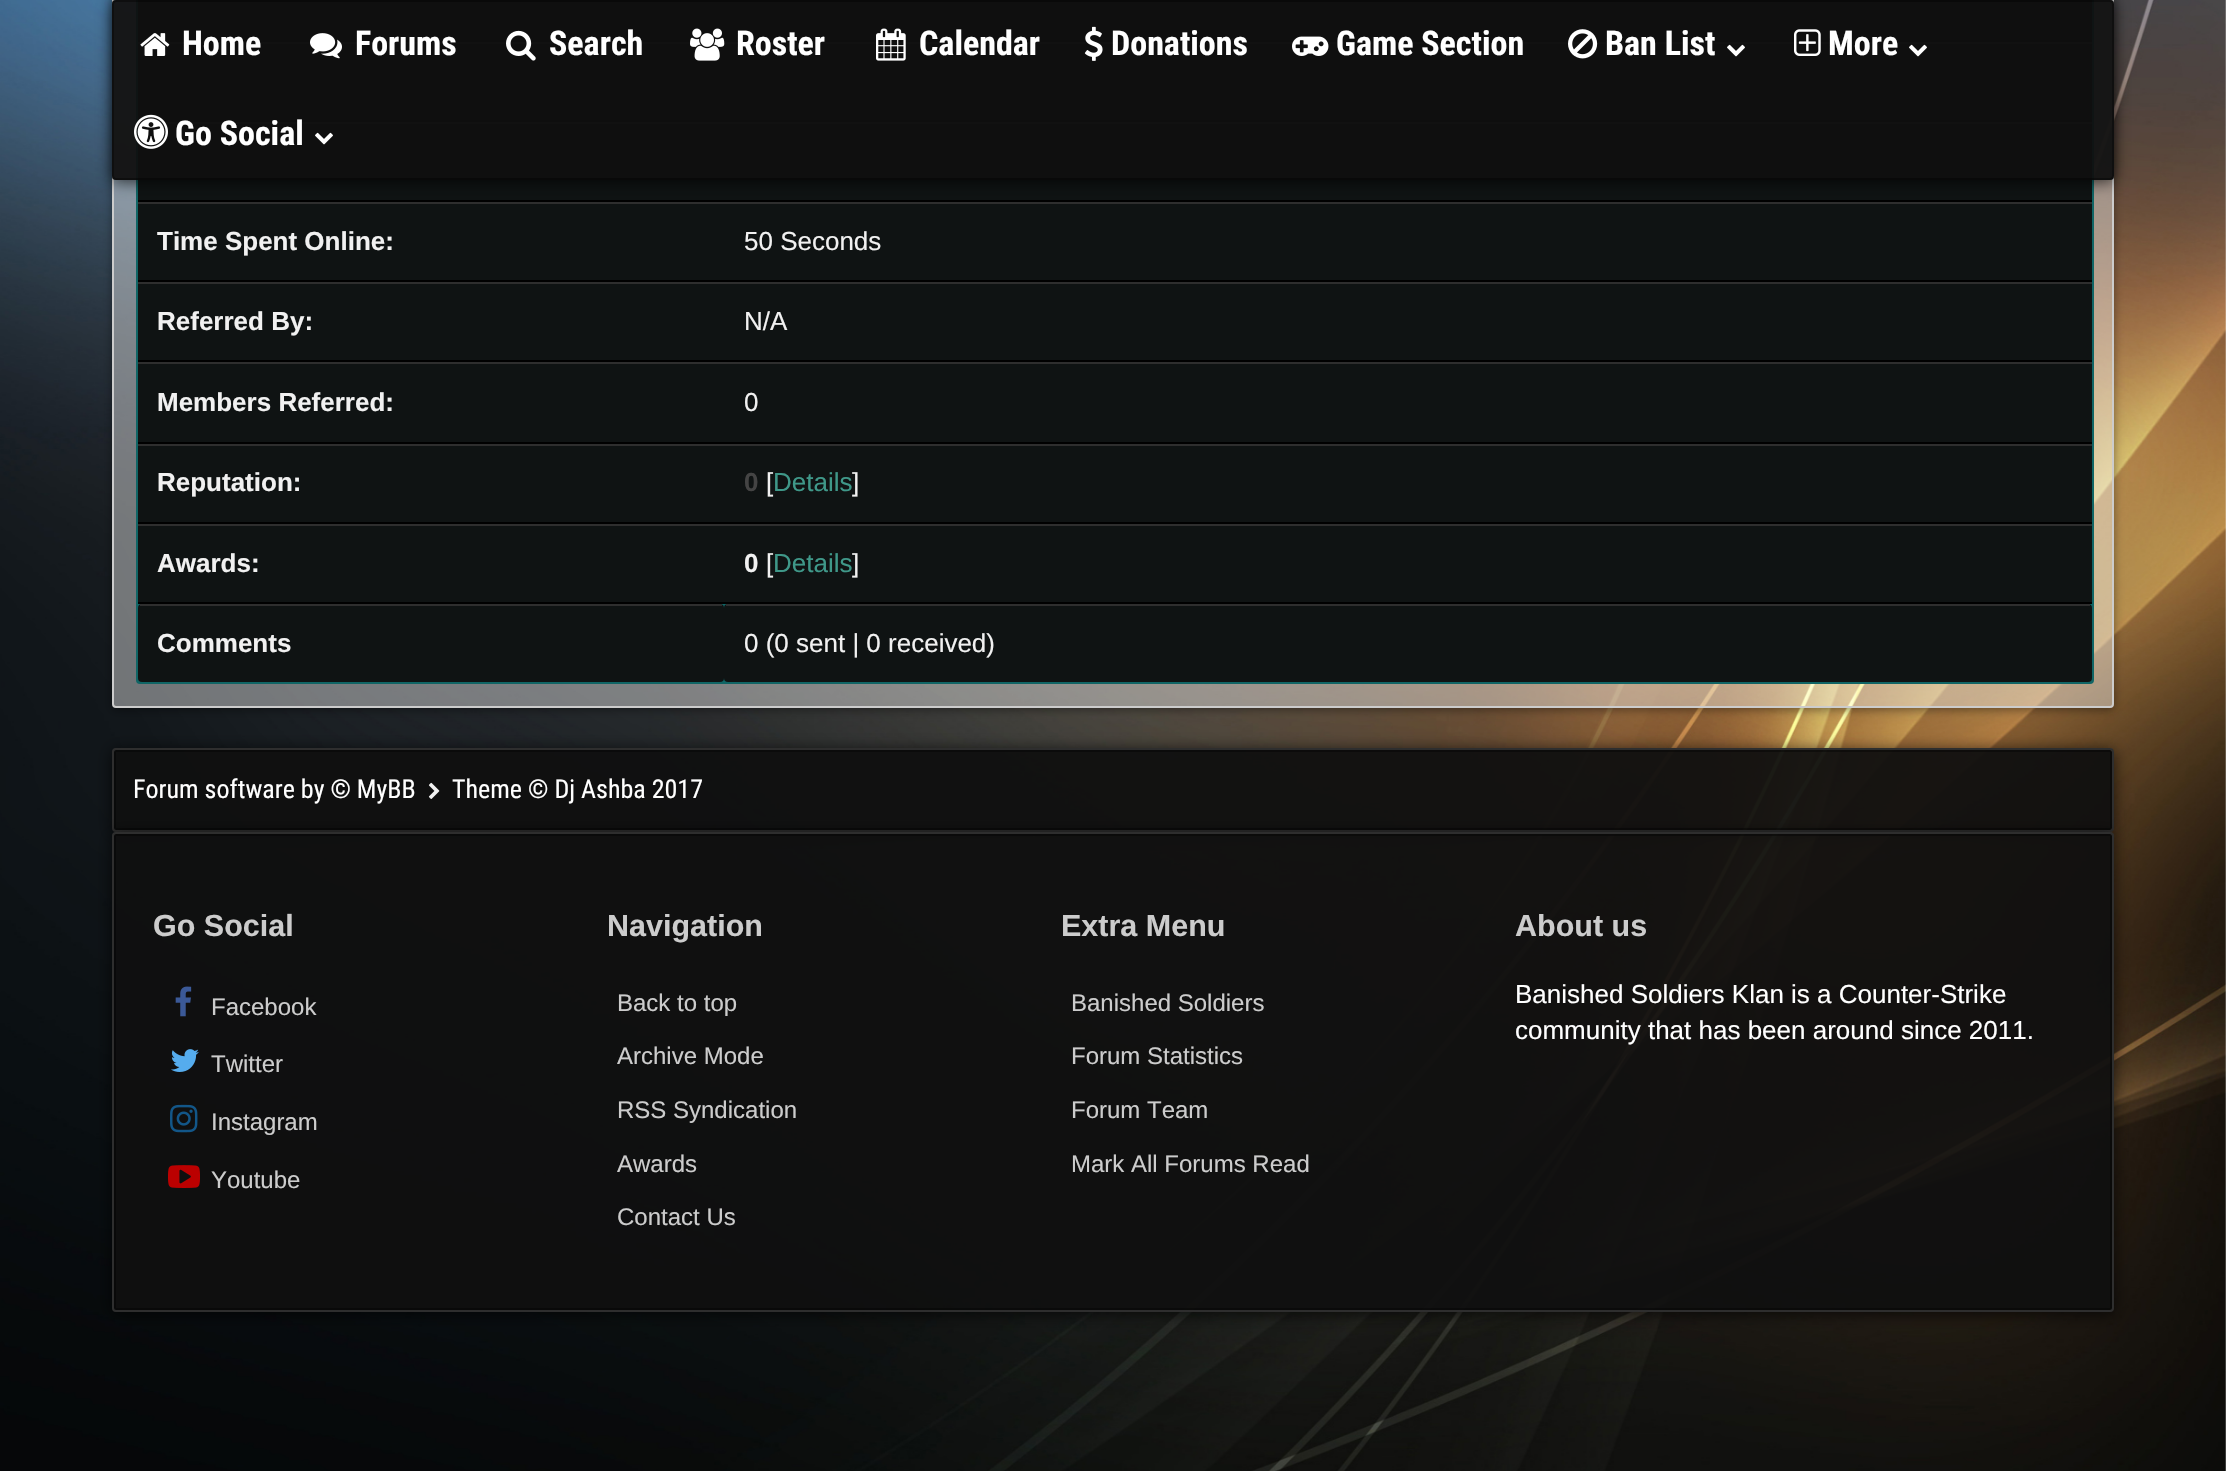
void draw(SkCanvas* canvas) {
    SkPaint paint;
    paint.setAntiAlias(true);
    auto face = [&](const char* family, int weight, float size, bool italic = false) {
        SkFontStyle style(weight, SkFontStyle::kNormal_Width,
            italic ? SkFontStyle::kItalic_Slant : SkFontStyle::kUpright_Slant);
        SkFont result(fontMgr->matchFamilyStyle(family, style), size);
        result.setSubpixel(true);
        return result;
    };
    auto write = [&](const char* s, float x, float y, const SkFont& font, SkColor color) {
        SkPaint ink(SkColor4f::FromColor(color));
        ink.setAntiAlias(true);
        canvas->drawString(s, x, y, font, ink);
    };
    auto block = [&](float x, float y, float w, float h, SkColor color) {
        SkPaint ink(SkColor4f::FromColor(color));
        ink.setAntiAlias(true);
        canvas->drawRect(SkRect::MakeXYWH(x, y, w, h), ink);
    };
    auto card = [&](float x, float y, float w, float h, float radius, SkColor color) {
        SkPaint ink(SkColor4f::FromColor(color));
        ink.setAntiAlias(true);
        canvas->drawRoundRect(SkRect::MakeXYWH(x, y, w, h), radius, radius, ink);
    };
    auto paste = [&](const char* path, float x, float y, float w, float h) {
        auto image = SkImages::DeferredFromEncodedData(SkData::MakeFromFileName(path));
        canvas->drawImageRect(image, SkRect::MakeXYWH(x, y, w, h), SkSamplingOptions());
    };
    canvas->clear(SK_ColorWHITE);
    paste("pic1.png", 0, 0, 2226, 1471);
    canvas->save();
    canvas->clipPath(SkPathBuilder(SkPathFillType::kEvenOdd).moveTo(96, 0).lineTo(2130, 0).lineTo(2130, 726).lineTo(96, 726).close().moveTo(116, -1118).lineTo(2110, -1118).cubicTo(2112, -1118, 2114, -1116, 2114, -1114).lineTo(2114, 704).cubicTo(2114, 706, 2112, 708, 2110, 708).lineTo(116, 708).cubicTo(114, 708, 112, 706, 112, 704).lineTo(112, -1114).cubicTo(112, -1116, 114, -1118, 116, -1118).close().detach(), true);
    paint.setColor(SkColorSetARGB(102, 0, 0, 0));
    paint.setMaskFilter(SkMaskFilter::MakeBlur(kNormal_SkBlurStyle, 5));
    canvas->drawRoundRect(SkRect::MakeXYWH(112, -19, 2002, 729), 4, 4, paint);
    paint.setMaskFilter(nullptr);
    canvas->restore();
    paint.setColor(SkColorSetARGB(102, 255, 255, 255));
    canvas->drawRoundRect(SkRect::MakeXYWH(113, -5, 2000, 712), 3, 3, paint);
    paint.setStyle(SkPaint::kStroke_Style);
    paint.setStrokeWidth(2);
    paint.setColor(SkColorSetRGB(204, 204, 204));
    canvas->drawRoundRect(SkRect::MakeXYWH(113, -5, 2000, 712), 3, 3, paint);
    card(136, -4, 1958, 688, 4, SkColorSetRGB(16, 101, 101));
    block(138, 0, 1954, 40, SkColorSetRGB(15, 19, 19));
    block(138, 40, 1954, 2, SK_ColorBLACK);
    block(138, 44, 1954, 76, SkColorSetRGB(15, 19, 19));
    block(138, 42, 577, 2, SkColorSetRGB(46, 46, 46));
    block(138, 120, 1954, 2, SK_ColorBLACK);
    block(724, 42, 1368, 2, SkColorSetRGB(46, 46, 46));
    block(138, 124, 1954, 76, SkColorSetRGB(15, 19, 19));
    block(138, 122, 1954, 2, SkColorSetRGB(46, 46, 46));
    block(138, 200, 1954, 2, SK_ColorBLACK);
    block(138, 204, 1954, 76, SkColorSetRGB(15, 19, 19));
    block(138, 202, 1954, 2, SkColorSetRGB(46, 46, 46));
    canvas->save();
    canvas->clipPath(SkPathBuilder(SkPathFillType::kEvenOdd).moveTo(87, 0).lineTo(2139, 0).lineTo(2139, 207).lineTo(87, 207).close().moveTo(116, 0).lineTo(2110, 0).cubicTo(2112, 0, 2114, 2, 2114, 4).lineTo(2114, 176).cubicTo(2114, 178, 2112, 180, 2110, 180).lineTo(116, 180).cubicTo(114, 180, 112, 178, 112, 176).lineTo(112, 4).cubicTo(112, 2, 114, 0, 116, 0).close().detach(), true);
    paint.setStyle(SkPaint::kFill_Style);
    paint.setColor(SkColorSetARGB(179, 0, 0, 0));
    paint.setMaskFilter(SkMaskFilter::MakeBlur(kNormal_SkBlurStyle, 8));
    canvas->drawRoundRect(SkRect::MakeXYWH(112, 2, 2002, 180), 4, 4, paint);
    paint.setMaskFilter(nullptr);
    canvas->restore();
    card(112, 0, 2002, 180, 4, SkColorSetARGB(242, 15, 15, 15));
    paint.setStyle(SkPaint::kStroke_Style);
    paint.setColor(SkColorSetARGB(102, 0, 0, 0));
    canvas->drawRoundRect(SkRect::MakeXYWH(113, 1, 2000, 178), 3, 3, paint);
    paste("pic2.png", 140, 33, 30, 23);
    auto kFont1 = face("Roboto Condensed", 700, 34);
    write("Home", 182, 55, kFont1, SK_ColorWHITE);
    paste("pic3.png", 310, 33, 32, 26);
    write("Forums", 355, 55, kFont1, SK_ColorWHITE);
    paste("pic4.png", 506, 30, 30, 31);
    write("Search", 549, 55, kFont1, SK_ColorWHITE);
    paste("pic5.png", 690, 28, 35, 33);
    write("Roster", 736, 55, kFont1, SK_ColorWHITE);
    paste("pic6.png", 876, 28, 30, 33);
    write("Calendar", 919, 55, kFont1, SK_ColorWHITE);
    paste("pic7.png", 1084, 26, 19, 35);
    write("Donations", 1111, 55, kFont1, SK_ColorWHITE);
    paste("pic8.png", 1292, 36, 37, 20);
    write("Game Section", 1336, 55, kFont1, SK_ColorWHITE);
    paste("pic9.png", 1568, 29, 30, 30);
    write("Ban List", 1605, 55, kFont1, SK_ColorWHITE);
    paste("pic10.png", 1727, 44, 18, 13);
    paste("pic11.png", 1794, 29, 27, 27);
    write("More", 1828, 55, kFont1, SK_ColorWHITE);
    paste("pic10.png", 1909, 44, 18, 13);
    paste("pic12.png", 134, 114, 34, 35);
    write("Go Social", 175, 145, kFont1, SK_ColorWHITE);
    paste("pic10.png", 315, 132, 18, 13);
    block(138, 280, 1954, 2, SK_ColorBLACK);
    auto kFont2 = face("Liberation Sans", 700, 26);
    write("Time Spent Online:", 157, 250, kFont2, SkColorSetRGB(241, 241, 241));
    auto kFont3 = face("Liberation Sans", 400, 26);
    write("50 Seconds", 744, 250, kFont3, SkColorSetRGB(241, 241, 241));
    block(138, 284, 1954, 76, SkColorSetRGB(15, 19, 19));
    block(138, 282, 1954, 2, SkColorSetRGB(46, 46, 46));
    block(138, 360, 1954, 2, SK_ColorBLACK);
    write("Referred By:", 157, 330, kFont2, SkColorSetRGB(241, 241, 241));
    write("N/A", 744, 330, kFont3, SkColorSetRGB(241, 241, 241));
    block(138, 364, 1954, 78, SkColorSetRGB(15, 19, 19));
    block(138, 362, 1954, 2, SkColorSetRGB(46, 46, 46));
    block(138, 442, 1954, 2, SK_ColorBLACK);
    write("Members Referred:", 157, 411, kFont2, SkColorSetRGB(241, 241, 241));
    write("0", 744, 411, kFont3, SkColorSetRGB(241, 241, 241));
    block(138, 446, 1954, 76, SkColorSetRGB(15, 19, 19));
    block(138, 444, 1954, 2, SkColorSetRGB(46, 46, 46));
    block(138, 522, 1954, 2, SK_ColorBLACK);
    write("Reputation:", 157, 491, kFont2, SkColorSetRGB(241, 241, 241));
    write("0", 744, 491, kFont2, SkColorSetRGB(68, 68, 68));
    write("[", 766, 491, kFont3, SkColorSetRGB(241, 241, 241));
    write("Details", 773, 491, kFont3, SkColorSetRGB(63, 152, 137));
    write("]", 852, 491, kFont3, SkColorSetRGB(241, 241, 241));
    block(138, 526, 1954, 76, SkColorSetRGB(15, 19, 19));
    block(138, 524, 1954, 2, SkColorSetRGB(46, 46, 46));
    block(138, 602, 1954, 2, SK_ColorBLACK);
    write("Awards:", 157, 572, kFont2, SkColorSetRGB(241, 241, 241));
    write("0", 744, 572, kFont2, SkColorSetRGB(241, 241, 241));
    write("[", 766, 572, kFont3, SkColorSetRGB(241, 241, 241));
    write("Details", 773, 572, kFont3, SkColorSetRGB(63, 152, 137));
    write("]", 852, 572, kFont3, SkColorSetRGB(241, 241, 241));
    card(138, 604, 586, 78, 4, SkColorSetRGB(15, 19, 19));
    block(140, 604, 582, 2, SkColorSetRGB(46, 46, 46));
    write("Comments", 157, 652, kFont2, SkColorSetRGB(241, 241, 241));
    card(724, 604, 1368, 78, 4, SkColorSetRGB(15, 19, 19));
    block(726, 604, 1364, 2, SkColorSetRGB(46, 46, 46));
    write("0 (0 sent | 0 received)", 744, 652, kFont3, SkColorSetRGB(241, 241, 241));
    canvas->save();
    canvas->clipPath(SkPathBuilder(SkPathFillType::kEvenOdd).moveTo(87, 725).lineTo(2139, 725).lineTo(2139, 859).lineTo(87, 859).close().moveTo(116, 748).lineTo(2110, 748).cubicTo(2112, 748, 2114, 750, 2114, 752).lineTo(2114, 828).cubicTo(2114, 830, 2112, 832, 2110, 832).lineTo(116, 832).cubicTo(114, 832, 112, 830, 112, 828).lineTo(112, 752).cubicTo(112, 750, 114, 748, 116, 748).close().detach(), true);
    paint.setStyle(SkPaint::kFill_Style);
    paint.setColor(SkColorSetARGB(179, 0, 0, 0));
    paint.setMaskFilter(SkMaskFilter::MakeBlur(kNormal_SkBlurStyle, 8));
    canvas->drawRoundRect(SkRect::MakeXYWH(112, 750, 2002, 84), 4, 4, paint);
    paint.setMaskFilter(nullptr);
    canvas->restore();
    card(114, 750, 1998, 80, 2, SkColorSetARGB(242, 15, 15, 15));
    paint.setStyle(SkPaint::kStroke_Style);
    paint.setColor(SkColorSetARGB(102, 0, 0, 0));
    canvas->drawRoundRect(SkRect::MakeXYWH(115, 751, 1996, 78), 1, 1, paint);
    paint.setColor(SkColorSetRGB(46, 46, 46));
    canvas->drawRoundRect(SkRect::MakeXYWH(113, 749, 2000, 82), 3, 3, paint);
    auto kFont4 = face("Roboto Condensed", 400, 26);
    write("Forum software by © MyBB", 133, 798, kFont4, SK_ColorWHITE);
    paste("pic13.png", 428, 782, 12, 17);
    write("Theme © Dj Ashba 2017", 452, 798, kFont4, SK_ColorWHITE);
    canvas->save();
    canvas->clipPath(SkPathBuilder(SkPathFillType::kEvenOdd).moveTo(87, 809).lineTo(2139, 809).lineTo(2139, 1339).lineTo(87, 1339).close().moveTo(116, 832).lineTo(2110, 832).cubicTo(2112, 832, 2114, 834, 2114, 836).lineTo(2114, 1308).cubicTo(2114, 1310, 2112, 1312, 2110, 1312).lineTo(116, 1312).cubicTo(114, 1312, 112, 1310, 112, 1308).lineTo(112, 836).cubicTo(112, 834, 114, 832, 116, 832).close().detach(), true);
    paint.setStyle(SkPaint::kFill_Style);
    paint.setColor(SkColorSetARGB(179, 0, 0, 0));
    paint.setMaskFilter(SkMaskFilter::MakeBlur(kNormal_SkBlurStyle, 8));
    canvas->drawRoundRect(SkRect::MakeXYWH(112, 834, 2002, 480), 4, 4, paint);
    paint.setMaskFilter(nullptr);
    canvas->restore();
    card(114, 834, 1998, 476, 2, SkColorSetARGB(242, 15, 15, 15));
    paint.setStyle(SkPaint::kStroke_Style);
    paint.setColor(SkColorSetARGB(102, 0, 0, 0));
    canvas->drawRoundRect(SkRect::MakeXYWH(115, 835, 1996, 474), 1, 1, paint);
    paint.setColor(SkColorSetRGB(46, 46, 46));
    canvas->drawRoundRect(SkRect::MakeXYWH(113, 833, 2000, 478), 3, 3, paint);
    auto kFont5 = face("Liberation Sans", 700, 30.5f);
    write("Go Social", 153, 936, kFont5, SkColorSetRGB(204, 204, 204));
    paste("pic14.png", 175, 986, 17, 31);
    auto kFont6 = face("Liberation Sans", 400, 24);
    write("Facebook", 211, 1015, kFont6, SkColorSetRGB(204, 204, 204));
    paste("pic15.png", 171, 1049, 28, 23);
    write("Twitter", 211, 1072, kFont6, SkColorSetRGB(204, 204, 204));
    paste("pic16.png", 170, 1104, 28, 29);
    write("Instagram", 211, 1130, kFont6, SkColorSetRGB(204, 204, 204));
    paste("pic17.png", 168, 1165, 32, 23);
    write("Youtube", 211, 1188, kFont6, SkColorSetRGB(204, 204, 204));
    write("Navigation", 607, 936, kFont5, SkColorSetRGB(204, 204, 204));
    write("Back to top", 617, 1011, kFont6, SkColorSetRGB(204, 204, 204));
    write("Archive Mode", 617, 1064, kFont6, SkColorSetRGB(204, 204, 204));
    write("RSS Syndication", 617, 1118, kFont6, SkColorSetRGB(204, 204, 204));
    write("Awards", 617, 1172, kFont6, SkColorSetRGB(204, 204, 204));
    write("Contact Us", 617, 1225, kFont6, SkColorSetRGB(204, 204, 204));
    write("Extra Menu", 1061, 936, kFont5, SkColorSetRGB(204, 204, 204));
    write("Banished Soldiers", 1071, 1011, kFont6, SkColorSetRGB(204, 204, 204));
    write("Forum Statistics", 1071, 1064, kFont6, SkColorSetRGB(204, 204, 204));
    write("Forum Team", 1071, 1118, kFont6, SkColorSetRGB(204, 204, 204));
    write("Mark All Forums Read", 1071, 1172, kFont6, SkColorSetRGB(204, 204, 204));
    write("About us", 1515, 936, kFont5, SkColorSetRGB(204, 204, 204));
    write("Banished Soldiers Klan is a Counter-Strike", 1515, 1003, kFont3, SK_ColorWHITE);
    write("community that has been around since 2011.", 1515, 1039, kFont3, SK_ColorWHITE);
}
